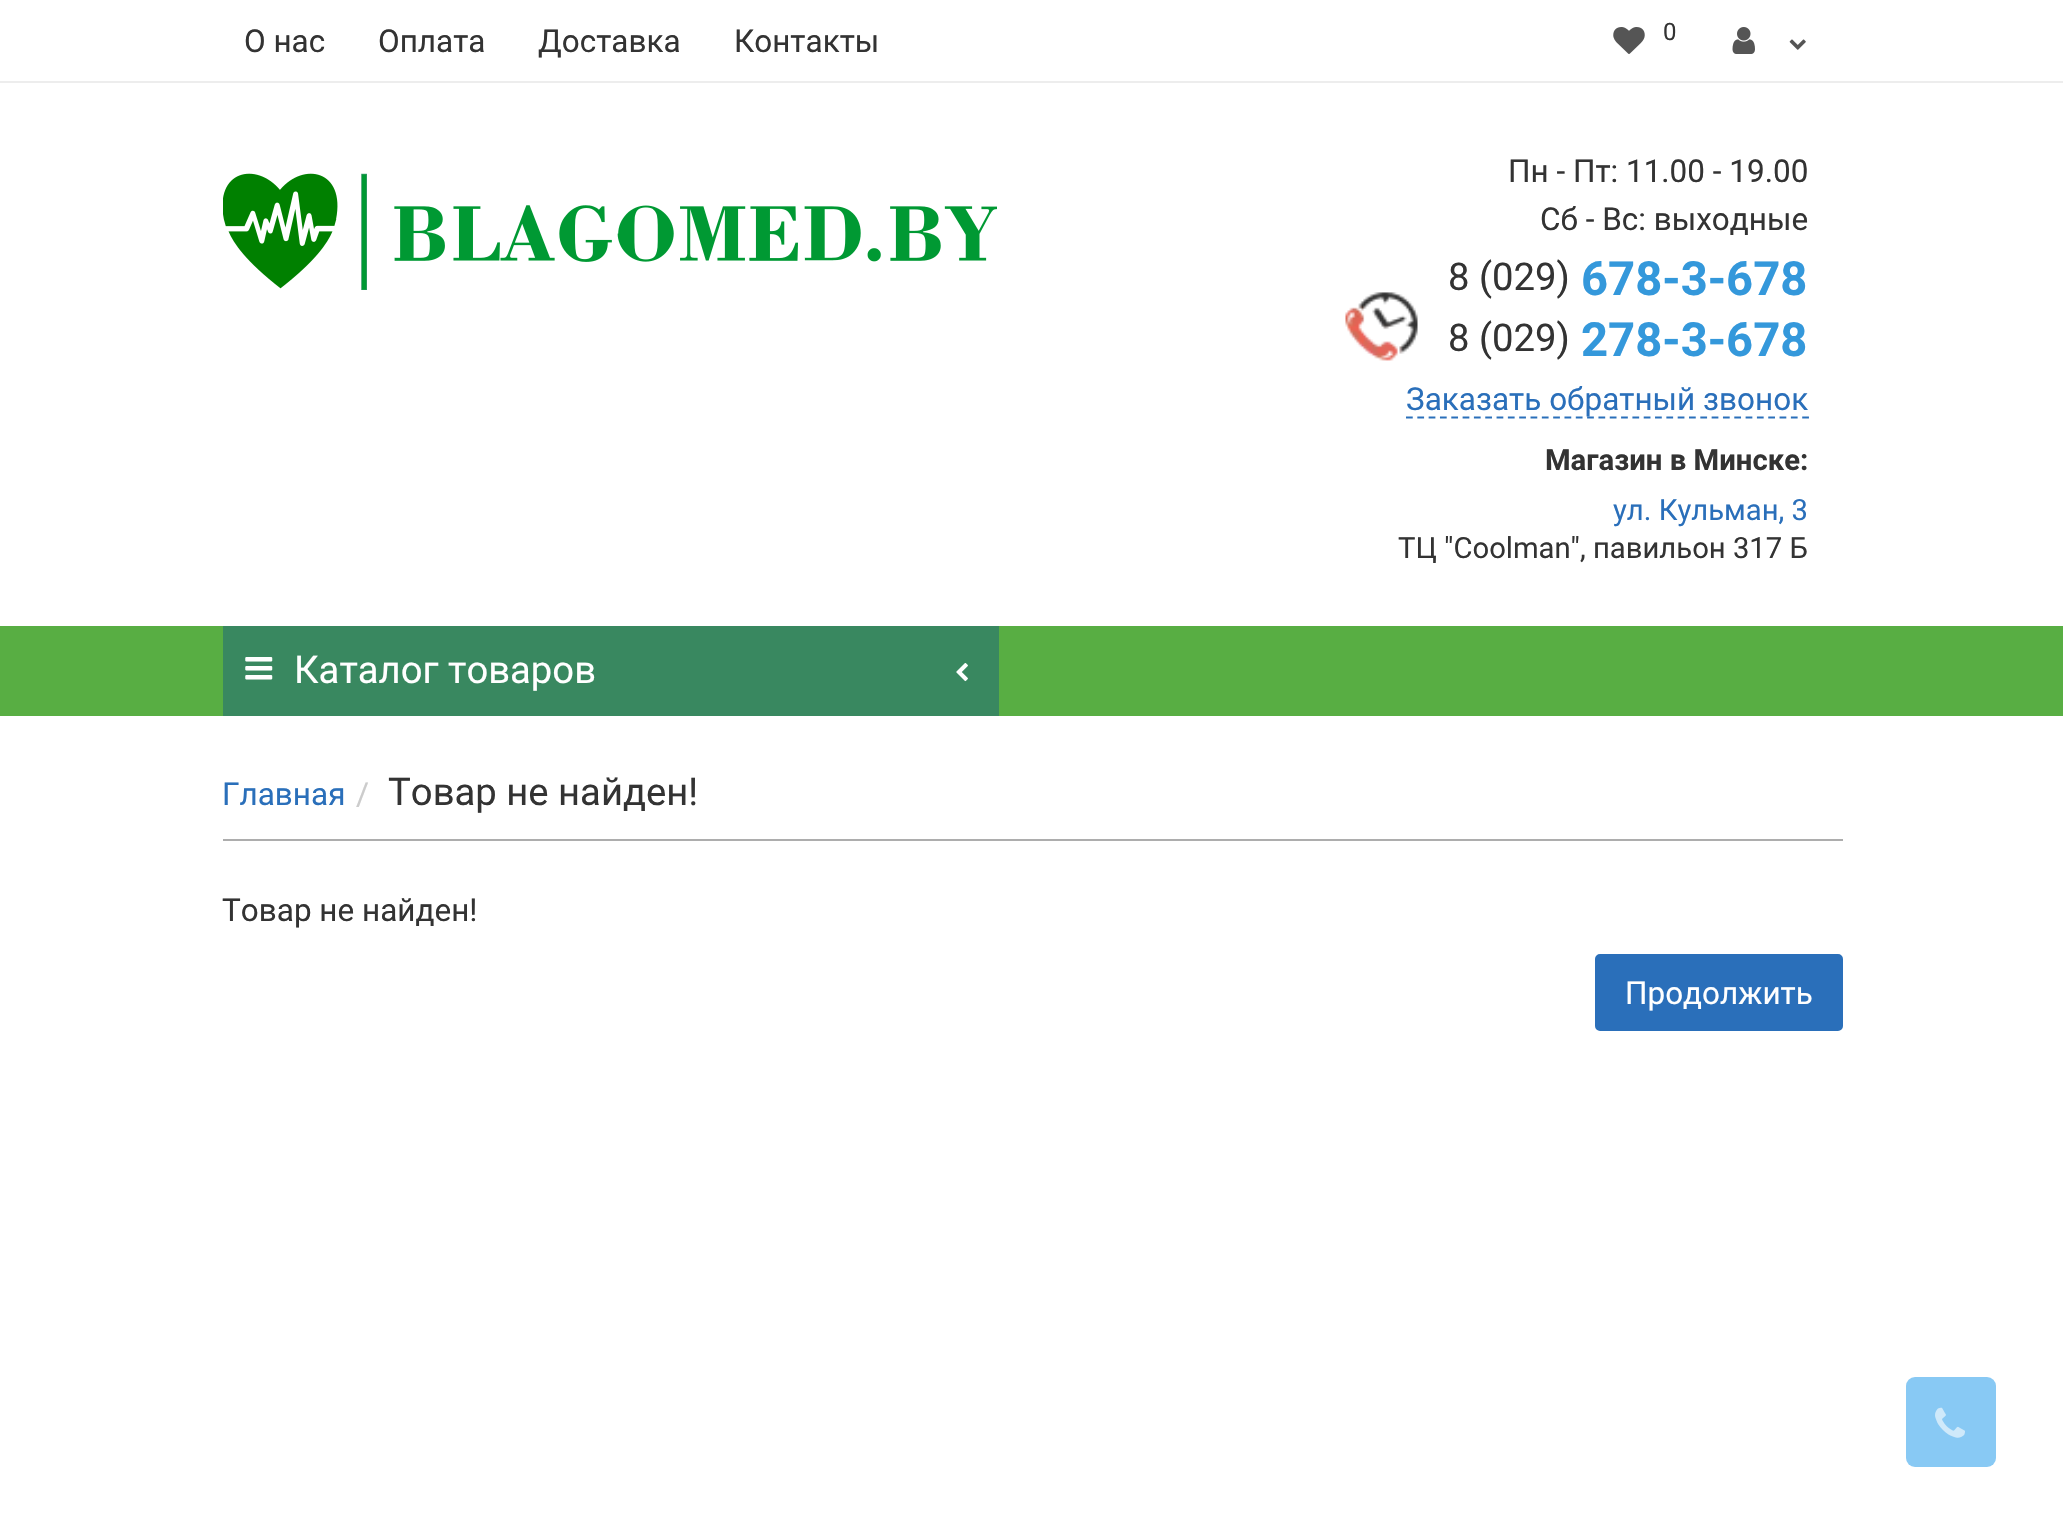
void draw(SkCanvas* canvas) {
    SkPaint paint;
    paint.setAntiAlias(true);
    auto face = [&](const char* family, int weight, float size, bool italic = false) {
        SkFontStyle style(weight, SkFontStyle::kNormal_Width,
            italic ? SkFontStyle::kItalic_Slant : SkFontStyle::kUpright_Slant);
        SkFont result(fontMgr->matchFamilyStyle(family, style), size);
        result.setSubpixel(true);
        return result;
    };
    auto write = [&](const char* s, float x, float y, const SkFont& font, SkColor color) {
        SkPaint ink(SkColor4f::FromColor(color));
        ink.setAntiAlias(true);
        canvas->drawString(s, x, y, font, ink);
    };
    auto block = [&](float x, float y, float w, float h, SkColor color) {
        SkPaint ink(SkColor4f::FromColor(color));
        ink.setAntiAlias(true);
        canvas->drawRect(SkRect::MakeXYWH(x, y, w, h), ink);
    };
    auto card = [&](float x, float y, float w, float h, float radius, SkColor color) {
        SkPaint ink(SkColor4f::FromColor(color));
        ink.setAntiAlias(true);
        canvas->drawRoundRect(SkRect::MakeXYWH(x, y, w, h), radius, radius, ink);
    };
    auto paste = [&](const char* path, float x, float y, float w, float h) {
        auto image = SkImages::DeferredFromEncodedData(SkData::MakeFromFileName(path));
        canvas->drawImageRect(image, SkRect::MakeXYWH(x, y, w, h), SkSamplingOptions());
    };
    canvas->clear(SK_ColorWHITE);
    block(0, 81, 2063, 2, SkColorSetRGB(237, 237, 237));
    auto kFont1 = face("Roboto", 400, 31.5f);
    write("О нас", 244, 52, kFont1, SkColorSetRGB(51, 51, 51));
    write("Оплата", 378, 52, kFont1, SkColorSetRGB(51, 51, 51));
    write("Доставка", 538, 52, kFont1, SkColorSetRGB(51, 51, 51));
    write("Контакты", 734, 52, kFont1, SkColorSetRGB(51, 51, 51));
    paste("pic1.png", 1613, 27, 32, 27);
    auto kFont2 = face("Roboto", 400, 24);
    write("0", 1663, 40, kFont2, SkColorSetRGB(51, 51, 51));
    paste("pic2.png", 1732, 27, 23, 27);
    paste("pic3.png", 1789, 39, 17, 11);
    paste("pic4.png", 223, 173, 774, 117);
    paste("pic5.png", 1345, 292, 73, 69);
    write("Пн - Пт: 11.00 - 19.00", 1508, 182, kFont1, SkColorSetRGB(51, 51, 51));
    write("Сб - Вс: выходные", 1540, 230, kFont1, SkColorSetRGB(51, 51, 51));
    auto kFont3 = face("Roboto", 400, 38.25f);
    write("8 (029)", 1448, 290, kFont3, SkColorSetRGB(51, 51, 51));
    auto kFont4 = face("Roboto", 700, 47.25f);
    write("678-3-678", 1581, 295, kFont4, SkColorSetRGB(52, 152, 219));
    write("8 (029)", 1448, 351, kFont3, SkColorSetRGB(51, 51, 51));
    write("278-3-678", 1581, 356, kFont4, SkColorSetRGB(52, 152, 219));
    paint.setStyle(SkPaint::kStroke_Style);
    paint.setStrokeWidth(2.2f);
    paint.setColor(SkColorSetRGB(42, 111, 186));
    paint.setPathEffect(SkDashPathEffect::Make({{6.75f, 4.57f}}, 0));
    canvas->drawPath(SkPathBuilder().moveTo(1406, 417.5f).lineTo(1809, 417.5f).detach(), paint);
    paint.setPathEffect(nullptr);
    write("Заказать обратный звонок", 1406, 410, kFont1, SkColorSetRGB(42, 111, 186));
    auto kFont5 = face("Roboto", 700, 29.25f);
    write("Магазин в Минске:", 1545, 470, kFont5, SkColorSetRGB(51, 51, 51));
    auto kFont6 = face("Roboto", 400, 29.25f);
    write("ул. Кульман, 3", 1613, 520, kFont6, SkColorSetRGB(42, 111, 186));
    write("ТЦ \"Coolman\", павильон 317 Б", 1398, 558, kFont6, SkColorSetRGB(51, 51, 51));
    block(0, 626, 2063, 90, SkColorSetRGB(88, 174, 67));
    block(223, 626, 776, 90, SkColorSetRGB(57, 136, 96));
    paste("pic6.png", 245, 657, 28, 23);
    write("Каталог товаров", 294, 683, kFont3, SK_ColorWHITE);
    paste("pic7.png", 956, 663, 12, 19);
    block(223, 839, 1620, 2, SkColorSetRGB(173, 173, 173));
    write("Главная", 222, 805, kFont1, SkColorSetRGB(42, 111, 186));
    write("/", 356, 805, kFont1, SkColorSetRGB(204, 204, 204));
    write("Товар не найден!", 388, 805, kFont3, SkColorSetRGB(51, 51, 51));
    write("Товар не найден!", 222, 921, kFont1, SkColorSetRGB(51, 51, 51));
    paint.setStyle(SkPaint::kFill_Style);
    canvas->drawRoundRect(SkRect::MakeXYWH(1596, 955, 246, 75), 4, 4, paint);
    paint.setStyle(SkPaint::kStroke_Style);
    paint.setStrokeWidth(2);
    canvas->drawRoundRect(SkRect::MakeXYWH(1596, 955, 246, 75), 4, 4, paint);
    write("Продолжить", 1625, 1004, kFont1, SK_ColorWHITE);
    card(1906, 1377, 90, 90, 9, SkColorSetRGB(136, 201, 244));
    paste("pic8.png", 1935, 1407, 30, 31);
}
